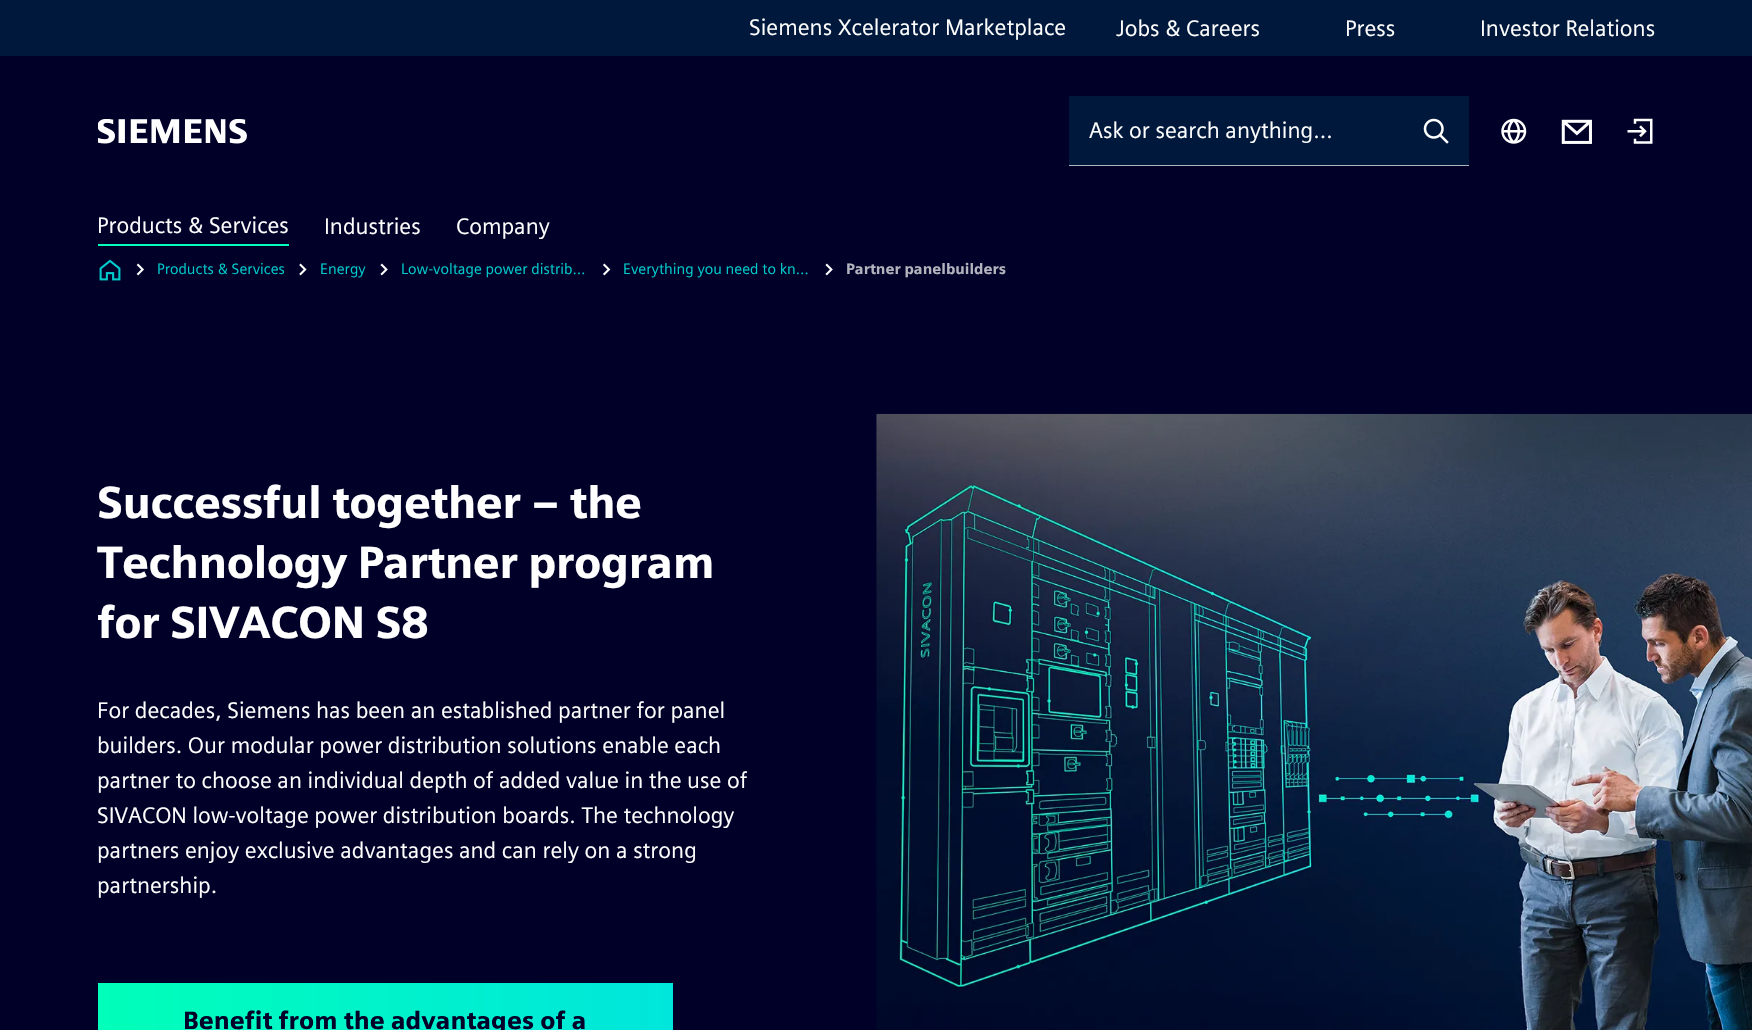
void draw(SkCanvas* canvas) {
    SkPaint paint;
    paint.setAntiAlias(true);
    auto face = [&](const char* family, int weight, float size, bool italic = false) {
        SkFontStyle style(weight, SkFontStyle::kNormal_Width,
            italic ? SkFontStyle::kItalic_Slant : SkFontStyle::kUpright_Slant);
        SkFont result(fontMgr->matchFamilyStyle(family, style), size);
        result.setSubpixel(true);
        return result;
    };
    auto write = [&](const char* s, float x, float y, const SkFont& font, SkColor color) {
        SkPaint ink(SkColor4f::FromColor(color));
        ink.setAntiAlias(true);
        canvas->drawString(s, x, y, font, ink);
    };
    auto writeSpaced = [&](const char* s, float x, float y, const SkFont& font, const SkPaint& ink, float letter, float word) {
        std::vector<SkGlyphID> glyphs(font.countText(s, strlen(s), SkTextEncoding::kUTF8));
        std::vector<float> xs(glyphs.size());
        font.textToGlyphs(s, strlen(s), SkTextEncoding::kUTF8, glyphs);
        font.getXPos(glyphs, xs, x);
        float extra = 0;
        for (size_t i = 0; i < glyphs.size(); i++) {
            xs[i] += extra;
            extra += letter + word * (glyphs[i] == font.unicharToGlyph(' '));
        }
        canvas->drawTextBlob(SkTextBlob::MakeFromPosHGlyphs(glyphs, xs, y, font), 0, 0, ink);
    };
    auto block = [&](float x, float y, float w, float h, SkColor color) {
        SkPaint ink(SkColor4f::FromColor(color));
        ink.setAntiAlias(true);
        canvas->drawRect(SkRect::MakeXYWH(x, y, w, h), ink);
    };
    auto paste = [&](const char* path, float x, float y, float w, float h) {
        auto image = SkImages::DeferredFromEncodedData(SkData::MakeFromFileName(path));
        canvas->drawImageRect(image, SkRect::MakeXYWH(x, y, w, h), SkSamplingOptions());
    };
    canvas->clear(SkColorSetRGB(0, 0, 40));
    block(0, 0, 1752, 56, SkColorSetRGB(0, 24, 59));
    auto kFont1 = face("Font", 400, 22.5f);
    write("Siemens Xcelerator Marketplace", 749, 35, kFont1, SK_ColorWHITE);
    write("Jobs & Careers", 1116, 36, kFont1, SK_ColorWHITE);
    write("Press", 1345, 36, kFont1, SK_ColorWHITE);
    write("Investor Relations", 1480, 36, kFont1, SK_ColorWHITE);
    paste("pic1.png", 98, 119, 149, 25);
    block(1069, 96, 400, 69, SkColorSetRGB(0, 24, 59));
    block(1069, 165, 400, 1, SkColorSetRGB(179, 179, 190));
    write("Ask or search anything…", 1089, 138, kFont1, SK_ColorWHITE);
    paste("pic2.png", 1423, 118, 26, 26);
    paste("pic3.png", 1501, 118, 26, 26);
    paste("pic4.png", 1561, 119, 31, 25);
    paste("pic5.png", 1627, 118, 26, 26);
    block(98, 244, 191, 2, SkColorSetRGB(0, 255, 185));
    write("Products & Services", 97, 233, kFont1, SK_ColorWHITE);
    write("Industries", 324, 234, kFont1, SK_ColorWHITE);
    write("Company", 456, 234, kFont1, SK_ColorWHITE);
    paste("pic6.png", 99, 259, 22, 22);
    paste("pic7.png", 136, 263, 8, 13);
    auto kFont2 = face("Font", 400, 15);
    write("Products & Services", 157, 274, kFont2, SkColorSetRGB(0, 204, 204));
    paste("pic8.png", 299, 263, 8, 13);
    write("Energy", 320, 274, kFont2, SkColorSetRGB(0, 204, 204));
    paste("pic9.png", 380, 263, 8, 13);
    write("Low-voltage power distrib…", 401, 274, kFont2, SkColorSetRGB(0, 204, 204));
    paste("pic10.png", 603, 263, 8, 13);
    write("Everything you need to kn…", 623, 274, kFont2, SkColorSetRGB(0, 204, 204));
    paste("pic9.png", 825, 263, 8, 13);
    auto kFont3 = face("Font", 700, 15);
    write("Partner panelbuilders", 846, 274, kFont3, SkColorSetRGB(179, 179, 190));
    auto kFont4 = face("Font", 700, 45);
    paint.setColor(SK_ColorWHITE);
    writeSpaced("Successful together – the", 97, 518, kFont4, paint, -0.6f, 0);
    writeSpaced("Technology Partner program", 97, 578, kFont4, paint, -0.6f, 0);
    writeSpaced("for SIVACON S8", 97, 638, kFont4, paint, -0.6f, 0);
    write("For decades, Siemens has been an established partner for panel", 97, 718, kFont1, SK_ColorWHITE);
    write("builders. Our modular power distribution solutions enable each", 97, 753, kFont1, SK_ColorWHITE);
    write("partner to choose an individual depth of added value in the use of", 97, 788, kFont1, SK_ColorWHITE);
    write("SIVACON low-voltage power distribution boards. The technology", 97, 823, kFont1, SK_ColorWHITE);
    write("partners enjoy exclusive advantages and can rely on a strong", 97, 858, kFont1, SK_ColorWHITE);
    write("partnership.", 97, 893, kFont1, SK_ColorWHITE);
    {
        const SkColor colors[] = {SkColorSetRGB(0, 255, 185), SkColorSetRGB(0, 230, 220)};
        const float stops[] = {0, 1};
        const SkPoint ends[] = {{98, 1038}, {673, 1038}};
        paint.setShader(SkGradientShader::MakeLinear(ends, colors, stops, 2, SkTileMode::kClamp));
        paint.setAlpha(255);
    }
    canvas->drawRect(SkRect::MakeXYWH(98, 983, 575, 47), paint);
    auto kFont5 = face("Font", 700, 25);
    write("Benefit from the advantages of a", 183, 1029, kFont5, SkColorSetRGB(0, 0, 40));
    paste("pic11.png", 876, 413, 876, 617);
}
